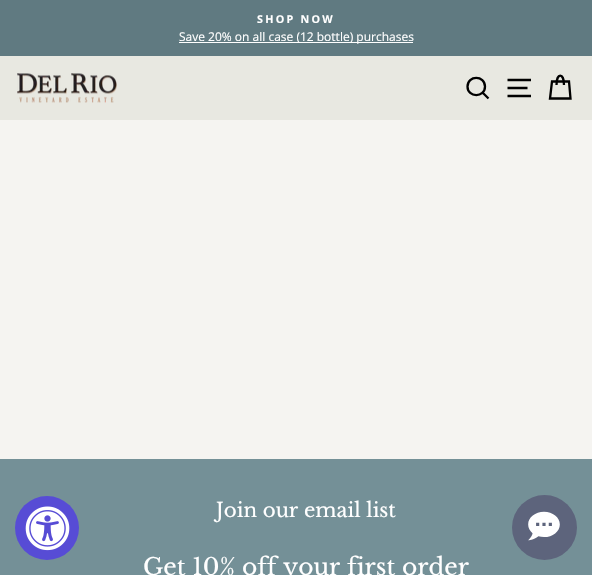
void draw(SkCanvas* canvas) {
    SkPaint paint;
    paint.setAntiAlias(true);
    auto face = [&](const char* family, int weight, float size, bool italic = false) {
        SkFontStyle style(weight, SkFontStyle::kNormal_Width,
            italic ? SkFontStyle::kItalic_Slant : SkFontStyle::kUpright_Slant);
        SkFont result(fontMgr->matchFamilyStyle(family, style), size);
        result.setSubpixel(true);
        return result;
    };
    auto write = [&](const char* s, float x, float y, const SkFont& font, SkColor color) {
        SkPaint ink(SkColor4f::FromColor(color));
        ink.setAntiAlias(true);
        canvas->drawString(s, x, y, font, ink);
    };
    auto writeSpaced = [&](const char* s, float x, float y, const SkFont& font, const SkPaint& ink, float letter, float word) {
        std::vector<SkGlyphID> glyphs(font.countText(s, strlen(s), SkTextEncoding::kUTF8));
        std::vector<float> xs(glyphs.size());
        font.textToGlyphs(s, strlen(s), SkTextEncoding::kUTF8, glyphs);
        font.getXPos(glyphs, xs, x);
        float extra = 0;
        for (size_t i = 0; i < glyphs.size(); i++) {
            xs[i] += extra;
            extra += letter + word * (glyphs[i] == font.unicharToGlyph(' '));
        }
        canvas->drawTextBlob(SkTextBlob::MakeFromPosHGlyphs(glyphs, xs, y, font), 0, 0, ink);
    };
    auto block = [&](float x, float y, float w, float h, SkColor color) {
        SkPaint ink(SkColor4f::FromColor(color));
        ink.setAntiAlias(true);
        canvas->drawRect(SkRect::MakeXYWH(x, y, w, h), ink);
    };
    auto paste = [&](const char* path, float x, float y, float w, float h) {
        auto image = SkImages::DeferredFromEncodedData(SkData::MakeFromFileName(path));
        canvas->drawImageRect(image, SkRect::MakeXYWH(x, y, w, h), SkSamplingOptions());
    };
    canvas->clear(SkColorSetRGB(245, 244, 241));
    block(0, 459, 592, 116, SkColorSetRGB(116, 144, 151));
    paint.setColor(SkColorSetRGB(87, 76, 213));
    canvas->drawCircle(47, 528, 32, paint);
    paste("pic1.png", 25, 506, 45, 45);
    block(0, 0, 592, 56, SkColorSetRGB(96, 122, 129));
    auto kFont1 = face("Open Sans", 700, 10.75f);
    paint.setColor(SK_ColorWHITE);
    writeSpaced("SHOP NOW", 257, 23, kFont1, paint, 2.25f, 0);
    block(179, 42, 234, 1, SK_ColorWHITE);
    auto kFont2 = face("Open Sans", 400, 12);
    write("Save 20% on all case (12 bottle) purchases", 179, 41, kFont2, SK_ColorWHITE);
    block(0, 56, 592, 64, SkColorSetRGB(232, 232, 225));
    paste("pic2.png", 17, 73, 100, 30);
    paint.setStyle(SkPaint::kStroke_Style);
    paint.setStrokeWidth(2.3f);
    paint.setColor(SK_ColorBLACK);
    canvas->drawPath(SkPathBuilder().moveTo(485, 86.5f).cubicTo(485, 98, 467.5f, 98, 467.5f, 86.5f).cubicTo(467.5f, 75, 485, 75, 485, 86.5f).close().moveTo(488.5f, 98.5f).lineTo(482.5f, 92.5f).detach(), paint);
    canvas->drawPath(SkPathBuilder().moveTo(507.5f, 80).lineTo(531, 80).moveTo(507.5f, 88).lineTo(527.5f, 88).moveTo(507.5f, 96).lineTo(531, 96).moveTo(556.5f, 85).cubicTo(556.5f, 72.5f, 564, 72.5f, 564, 85).detach(), paint);
    canvas->drawPath(SkPathBuilder().moveTo(552, 81.5f).lineTo(569, 81.5f).lineTo(570.5f, 98.5f).lineTo(550, 98.5f).close().detach(), paint);
    auto kFont3 = face("Libre Baskerville", 400, 19.75f);
    write("Join our email list", 216, 517, kFont3, SK_ColorWHITE);
    auto kFont4 = face("Libre Baskerville", 400, 23.4f);
    write("Get 10% off your first order", 143, 575, kFont4, SK_ColorWHITE);
    paste("pic3.png", 512, 495, 65, 65);
}
